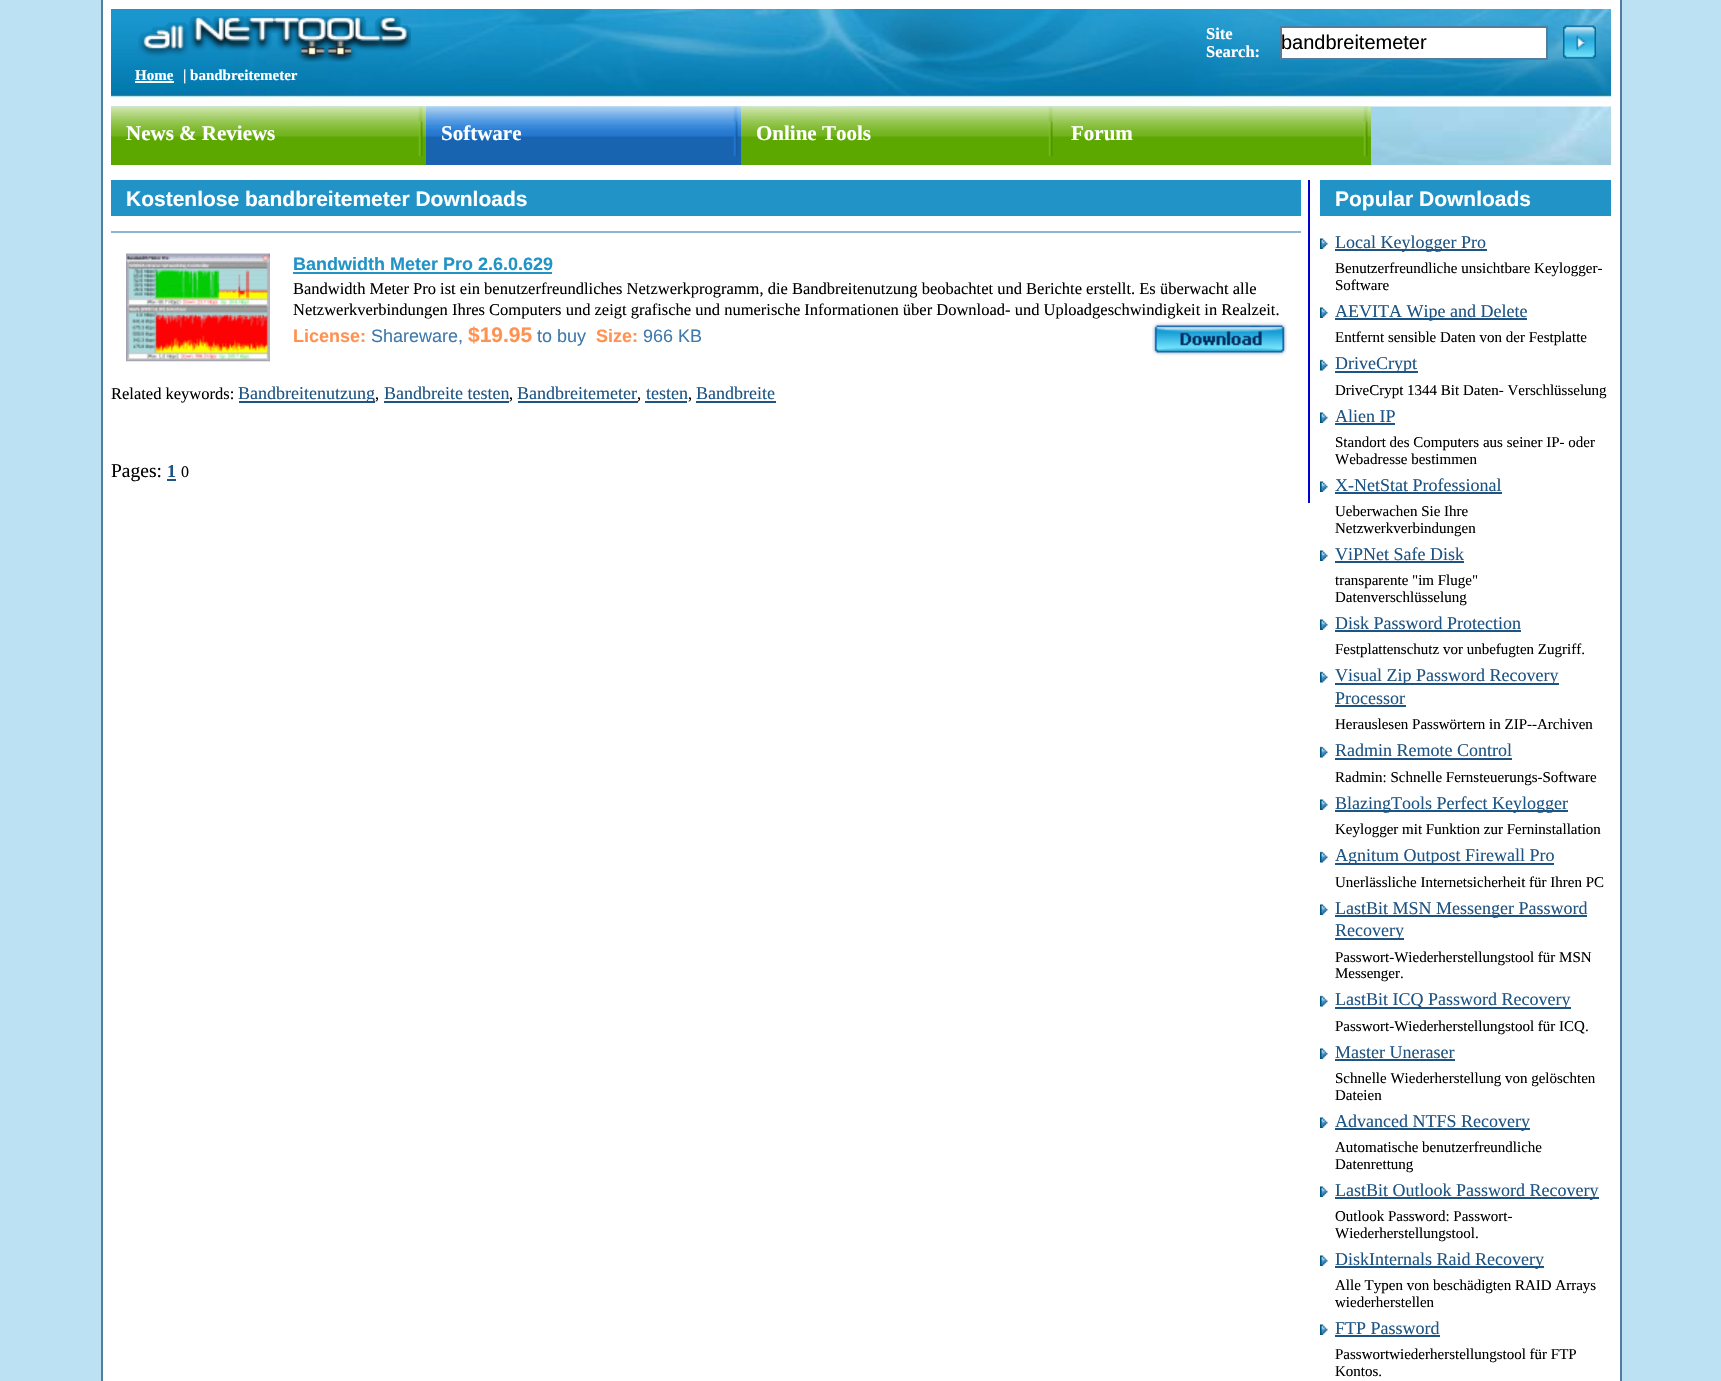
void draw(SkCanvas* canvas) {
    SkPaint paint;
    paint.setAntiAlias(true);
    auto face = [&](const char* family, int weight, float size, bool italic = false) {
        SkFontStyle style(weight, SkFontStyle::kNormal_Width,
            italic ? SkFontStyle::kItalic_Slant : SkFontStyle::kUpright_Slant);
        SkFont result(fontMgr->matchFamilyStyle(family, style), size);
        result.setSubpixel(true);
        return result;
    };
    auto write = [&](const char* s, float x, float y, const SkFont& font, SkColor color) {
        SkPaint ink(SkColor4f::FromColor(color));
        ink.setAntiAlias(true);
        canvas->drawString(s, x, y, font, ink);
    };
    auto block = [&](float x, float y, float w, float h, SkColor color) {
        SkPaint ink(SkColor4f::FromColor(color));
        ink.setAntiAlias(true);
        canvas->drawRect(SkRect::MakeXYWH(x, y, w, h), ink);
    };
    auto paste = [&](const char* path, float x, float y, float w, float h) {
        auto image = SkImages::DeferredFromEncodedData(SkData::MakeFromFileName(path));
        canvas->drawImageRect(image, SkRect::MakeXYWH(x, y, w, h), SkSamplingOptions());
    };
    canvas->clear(SkColorSetRGB(187, 225, 243));
    block(103, 0, 1517, 1381, SK_ColorWHITE);
    block(1620, 0, 2, 1381, SkColorSetRGB(84, 124, 157));
    block(101, 0, 2, 1381, SkColorSetRGB(84, 124, 157));
    paste("pic1.png", 111, 9, 1500, 96);
    paste("pic2.png", 138, 16, 273, 46);
    auto kFont1 = face("Liberation Serif", 700, 16.5f);
    write("Site", 1206, 39, kFont1, SK_ColorWHITE);
    write("Search:", 1206, 57, kFont1, SK_ColorWHITE);
    paint.setColor(SK_ColorWHITE);
    canvas->drawRect(SkRect::MakeXYWH(1281, 27, 266, 32), paint);
    paint.setStyle(SkPaint::kStroke_Style);
    paint.setStrokeWidth(2);
    paint.setColor(SkColorSetRGB(84, 124, 157));
    canvas->drawRect(SkRect::MakeXYWH(1281, 27, 266, 32), paint);
    auto kFont2 = face("Liberation Sans", 400, 20);
    write("bandbreitemeter", 1281, 49, kFont2, SK_ColorBLACK);
    paste("pic3.png", 1563, 25, 33, 34);
    auto kFont3 = face("Liberation Serif", 700, 15);
    write("Home", 135, 80, kFont3, SK_ColorWHITE);
    block(135, 81, 39, 2, SK_ColorWHITE);
    write("| bandbreitemeter", 183, 80, kFont3, SK_ColorWHITE);
    paste("pic4.png", 111, 106, 1500, 59);
    paste("pic5.png", 111, 106, 315, 59);
    auto kFont4 = face("Liberation Serif", 700, 21);
    write("News & Reviews", 126, 140, kFont4, SK_ColorWHITE);
    paste("pic6.png", 426, 106, 315, 59);
    write("Software", 441, 140, kFont4, SK_ColorWHITE);
    paste("pic7.png", 741, 106, 315, 59);
    write("Online Tools", 756, 140, kFont4, SK_ColorWHITE);
    paste("pic8.png", 1056, 106, 315, 59);
    write("Forum", 1071, 140, kFont4, SK_ColorWHITE);
    block(1308, 180, 2, 323, SkColorSetRGB(0, 0, 208));
    block(111, 180, 1190, 36, SkColorSetRGB(33, 147, 198));
    auto kFont5 = face("Liberation Sans", 700, 21);
    write("Kostenlose bandbreitemeter Downloads", 126, 206, kFont5, SK_ColorWHITE);
    block(111, 231, 1190, 2, SkColorSetRGB(142, 180, 212));
    paste("pic9.png", 126, 253, 144, 109);
    auto kFont6 = face("Liberation Sans", 700, 18);
    write("Bandwidth Meter Pro 2.6.0.629", 293, 270, kFont6, SkColorSetRGB(33, 147, 198));
    block(293, 272, 259, 2, SkColorSetRGB(33, 147, 198));
    auto kFont7 = face("Liberation Serif", 400, 16.5f);
    write("Bandwidth Meter Pro ist ein benutzerfreundliches Netzwerkprogramm, die Bandbreitenutzung beobachtet und Berichte erstellt. Es überwacht alle", 293, 294, kFont7, SK_ColorBLACK);
    write("Netzwerkverbindungen Ihres Computers und zeigt grafische und numerische Informationen über Download- und Uploadgeschwindigkeit in Realzeit.", 293, 315, kFont7, SK_ColorBLACK);
    write("License:", 293, 342, kFont6, SkColorSetRGB(255, 146, 81));
    auto kFont8 = face("Liberation Sans", 400, 18);
    write("Shareware,", 371, 342, kFont8, SkColorSetRGB(63, 121, 172));
    write("$19.95", 468, 342, kFont5, SkColorSetRGB(255, 146, 81));
    write("to buy", 537, 342, kFont8, SkColorSetRGB(63, 121, 172));
    write("Size:", 596, 342, kFont6, SkColorSetRGB(255, 146, 81));
    write("966 KB", 643, 342, kFont8, SkColorSetRGB(63, 121, 172));
    paste("pic10.png", 1152, 322, 135, 34);
    write("Related keywords:", 111, 399, kFont7, SK_ColorBLACK);
    block(239, 401, 136, 2, SkColorSetRGB(30, 84, 131));
    auto kFont9 = face("Liberation Serif", 400, 18);
    write("Bandbreitenutzung", 238, 399, kFont9, SkColorSetRGB(30, 84, 131));
    write(",", 375, 399, kFont7, SK_ColorBLACK);
    write("Bandbreite testen", 384, 399, kFont9, SkColorSetRGB(30, 84, 131));
    block(384, 401, 125, 2, SkColorSetRGB(30, 84, 131));
    write(",", 509, 399, kFont7, SK_ColorBLACK);
    write("Bandbreitemeter", 517, 399, kFont9, SkColorSetRGB(30, 84, 131));
    block(518, 401, 120, 2, SkColorSetRGB(30, 84, 131));
    write(",", 637, 399, kFont7, SK_ColorBLACK);
    write("testen", 646, 399, kFont9, SkColorSetRGB(30, 84, 131));
    block(645, 401, 42, 2, SkColorSetRGB(30, 84, 131));
    write(",", 688, 399, kFont7, SK_ColorBLACK);
    write("Bandbreite", 696, 399, kFont9, SkColorSetRGB(30, 84, 131));
    block(696, 401, 80, 2, SkColorSetRGB(30, 84, 131));
    auto kFont10 = face("Liberation Serif", 400, 19.5f);
    write("Pages:", 111, 477, kFont10, SK_ColorBLACK);
    auto kFont11 = face("Liberation Serif", 700, 18);
    write("1", 167, 477, kFont11, SkColorSetRGB(30, 84, 131));
    block(167, 479, 9, 2, SkColorSetRGB(30, 84, 131));
    auto kFont12 = face("Liberation Serif", 400, 16);
    write("0", 181, 477, kFont12, SK_ColorBLACK);
    block(1320, 180, 291, 36, SkColorSetRGB(33, 147, 198));
    write("Popular Downloads", 1335, 206, kFont5, SK_ColorWHITE);
    paste("pic11.png", 1320, 238, 8, 11);
    block(1335, 249, 152, 2, SkColorSetRGB(30, 84, 131));
    write("Local Keylogger Pro", 1335, 248, kFont9, SkColorSetRGB(30, 84, 131));
    auto kFont13 = face("Liberation Serif", 400, 15);
    write("Benutzerfreundliche unsichtbare Keylogger-", 1335, 273, kFont13, SK_ColorBLACK);
    write("Software", 1335, 290, kFont13, SK_ColorBLACK);
    paste("pic11.png", 1320, 307, 8, 11);
    block(1335, 318, 192, 2, SkColorSetRGB(30, 84, 131));
    write("AEVITA Wipe and Delete", 1335, 317, kFont9, SkColorSetRGB(30, 84, 131));
    write("Entfernt sensible Daten von der Festplatte", 1335, 342, kFont13, SK_ColorBLACK);
    paste("pic12.png", 1320, 359, 8, 12);
    block(1335, 371, 83, 2, SkColorSetRGB(30, 84, 131));
    write("DriveCrypt", 1335, 369, kFont9, SkColorSetRGB(30, 84, 131));
    write("DriveCrypt 1344 Bit Daten- Verschlüsselung", 1335, 395, kFont13, SK_ColorBLACK);
    paste("pic11.png", 1320, 412, 8, 11);
    write("Alien IP", 1335, 422, kFont9, SkColorSetRGB(30, 84, 131));
    block(1335, 423, 60, 2, SkColorSetRGB(30, 84, 131));
    write("Standort des Computers aus seiner IP- oder", 1335, 447, kFont13, SK_ColorBLACK);
    write("Webadresse bestimmen", 1335, 464, kFont13, SK_ColorBLACK);
    paste("pic11.png", 1320, 481, 8, 11);
    write("X-NetStat Professional", 1335, 491, kFont9, SkColorSetRGB(30, 84, 131));
    block(1335, 492, 167, 2, SkColorSetRGB(30, 84, 131));
    write("Ueberwachen Sie Ihre", 1335, 516, kFont13, SK_ColorBLACK);
    write("Netzwerkverbindungen", 1335, 533, kFont13, SK_ColorBLACK);
    paste("pic11.png", 1320, 550, 8, 11);
    write("ViPNet Safe Disk", 1335, 560, kFont9, SkColorSetRGB(30, 84, 131));
    block(1335, 561, 129, 2, SkColorSetRGB(30, 84, 131));
    write("transparente \"im Fluge\"", 1335, 585, kFont13, SK_ColorBLACK);
    write("Datenverschlüsselung", 1335, 602, kFont13, SK_ColorBLACK);
    paste("pic11.png", 1320, 619, 8, 11);
    write("Disk Password Protection", 1335, 629, kFont9, SkColorSetRGB(30, 84, 131));
    block(1335, 630, 186, 2, SkColorSetRGB(30, 84, 131));
    write("Festplattenschutz vor unbefugten Zugriff.", 1335, 654, kFont13, SK_ColorBLACK);
    paste("pic12.png", 1320, 671, 8, 12);
    block(1335, 683, 224, 2, SkColorSetRGB(30, 84, 131));
    write("Visual Zip Password Recovery", 1335, 681, kFont9, SkColorSetRGB(30, 84, 131));
    write("Processor", 1335, 704, kFont9, SkColorSetRGB(30, 84, 131));
    block(1335, 705, 71, 2, SkColorSetRGB(30, 84, 131));
    write("Herauslesen Passwörtern in ZIP--Archiven", 1335, 729, kFont13, SK_ColorBLACK);
    paste("pic12.png", 1320, 746, 8, 12);
    write("Radmin Remote Control", 1335, 756, kFont9, SkColorSetRGB(30, 84, 131));
    block(1335, 758, 177, 2, SkColorSetRGB(30, 84, 131));
    write("Radmin: Schnelle Fernsteuerungs-Software", 1335, 782, kFont13, SK_ColorBLACK);
    paste("pic11.png", 1320, 799, 8, 11);
    block(1335, 810, 233, 2, SkColorSetRGB(30, 84, 131));
    write("BlazingTools Perfect Keylogger", 1335, 809, kFont9, SkColorSetRGB(30, 84, 131));
    write("Keylogger mit Funktion zur Ferninstallation", 1335, 834, kFont13, SK_ColorBLACK);
    paste("pic12.png", 1320, 851, 8, 12);
    block(1335, 863, 219, 2, SkColorSetRGB(30, 84, 131));
    write("Agnitum Outpost Firewall Pro", 1335, 861, kFont9, SkColorSetRGB(30, 84, 131));
    write("Unerlässliche Internetsicherheit für Ihren PC", 1335, 887, kFont13, SK_ColorBLACK);
    paste("pic11.png", 1320, 904, 8, 11);
    block(1335, 915, 252, 2, SkColorSetRGB(30, 84, 131));
    write("LastBit MSN Messenger Password", 1335, 914, kFont9, SkColorSetRGB(30, 84, 131));
    block(1335, 938, 69, 2, SkColorSetRGB(30, 84, 131));
    write("Recovery", 1335, 936, kFont9, SkColorSetRGB(30, 84, 131));
    write("Passwort-Wiederherstellungstool für MSN", 1335, 962, kFont13, SK_ColorBLACK);
    write("Messenger.", 1335, 978, kFont13, SK_ColorBLACK);
    paste("pic12.png", 1320, 995, 8, 12);
    block(1335, 1007, 236, 2, SkColorSetRGB(30, 84, 131));
    write("LastBit ICQ Password Recovery", 1335, 1005, kFont9, SkColorSetRGB(30, 84, 131));
    write("Passwort-Wiederherstellungstool für ICQ.", 1335, 1031, kFont13, SK_ColorBLACK);
    paste("pic11.png", 1320, 1048, 8, 11);
    write("Master Uneraser", 1335, 1058, kFont9, SkColorSetRGB(30, 84, 131));
    block(1335, 1059, 120, 2, SkColorSetRGB(30, 84, 131));
    write("Schnelle Wiederherstellung von gelöschten", 1335, 1083, kFont13, SK_ColorBLACK);
    write("Dateien", 1335, 1100, kFont13, SK_ColorBLACK);
    paste("pic11.png", 1320, 1117, 8, 11);
    block(1335, 1128, 195, 2, SkColorSetRGB(30, 84, 131));
    write("Advanced NTFS Recovery", 1335, 1127, kFont9, SkColorSetRGB(30, 84, 131));
    write("Automatische benutzerfreundliche", 1335, 1152, kFont13, SK_ColorBLACK);
    write("Datenrettung", 1335, 1169, kFont13, SK_ColorBLACK);
    paste("pic11.png", 1320, 1186, 8, 11);
    block(1335, 1197, 264, 2, SkColorSetRGB(30, 84, 131));
    write("LastBit Outlook Password Recovery", 1335, 1196, kFont9, SkColorSetRGB(30, 84, 131));
    write("Outlook Password: Passwort-", 1335, 1221, kFont13, SK_ColorBLACK);
    write("Wiederherstellungstool.", 1335, 1238, kFont13, SK_ColorBLACK);
    paste("pic11.png", 1320, 1255, 8, 11);
    block(1335, 1266, 209, 2, SkColorSetRGB(30, 84, 131));
    write("DiskInternals Raid Recovery", 1335, 1265, kFont9, SkColorSetRGB(30, 84, 131));
    write("Alle Typen von beschädigten RAID Arrays", 1335, 1290, kFont13, SK_ColorBLACK);
    write("wiederherstellen", 1335, 1307, kFont13, SK_ColorBLACK);
    paste("pic11.png", 1320, 1324, 8, 11);
    write("FTP Password", 1335, 1334, kFont9, SkColorSetRGB(30, 84, 131));
    block(1335, 1335, 105, 2, SkColorSetRGB(30, 84, 131));
    write("Passwortwiederherstellungstool für FTP", 1335, 1359, kFont13, SK_ColorBLACK);
    write("Kontos.", 1335, 1376, kFont13, SK_ColorBLACK);
}
